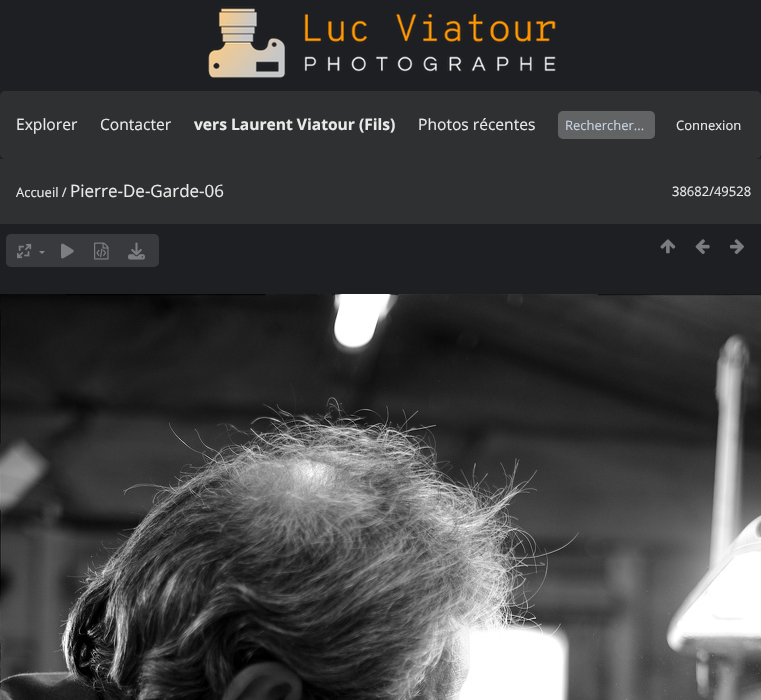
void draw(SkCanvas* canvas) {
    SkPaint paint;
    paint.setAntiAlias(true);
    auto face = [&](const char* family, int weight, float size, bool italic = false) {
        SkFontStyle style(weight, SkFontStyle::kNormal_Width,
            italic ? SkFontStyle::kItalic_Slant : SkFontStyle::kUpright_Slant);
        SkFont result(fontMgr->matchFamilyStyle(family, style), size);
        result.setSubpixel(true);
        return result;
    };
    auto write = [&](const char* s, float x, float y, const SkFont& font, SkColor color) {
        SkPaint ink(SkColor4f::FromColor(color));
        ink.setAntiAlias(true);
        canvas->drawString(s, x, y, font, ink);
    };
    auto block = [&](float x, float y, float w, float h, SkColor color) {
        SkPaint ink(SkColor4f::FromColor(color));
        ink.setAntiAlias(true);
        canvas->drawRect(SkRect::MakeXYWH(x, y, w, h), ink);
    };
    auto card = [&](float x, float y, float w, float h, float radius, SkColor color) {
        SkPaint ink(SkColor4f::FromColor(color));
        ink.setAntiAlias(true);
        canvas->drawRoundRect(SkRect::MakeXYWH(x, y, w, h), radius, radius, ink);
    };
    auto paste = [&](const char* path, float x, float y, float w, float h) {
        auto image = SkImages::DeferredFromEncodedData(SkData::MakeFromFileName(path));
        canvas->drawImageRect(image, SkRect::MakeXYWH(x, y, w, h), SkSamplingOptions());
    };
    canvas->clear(SkColorSetRGB(30, 31, 35));
    paste("pic1.png", 208, 6, 348, 72);
    card(0, 91, 761, 68, 5, SkColorSetRGB(47, 48, 50));
    auto kFont1 = face("Open Sans", 400, 15.6f);
    write("Explorer", 16, 130, kFont1, SkColorSetRGB(234, 234, 233));
    write("Contacter", 100, 130, kFont1, SkColorSetRGB(234, 234, 233));
    auto kFont2 = face("Open Sans", 700, 15.6f);
    write("vers Laurent Viatour (Fils)", 194, 130, kFont2, SkColorSetRGB(234, 234, 233));
    write("Photos récentes", 418, 130, kFont1, SkColorSetRGB(234, 234, 233));
    card(558, 111, 97, 28, 5, SkColorSetRGB(97, 99, 100));
    auto kFont3 = face("Open Sans", 400, 13);
    write("Rechercher...", 565, 130, kFont3, SkColorSetRGB(199, 211, 225));
    write("Connexion", 676, 130, kFont3, SkColorSetRGB(234, 234, 233));
    block(0, 159, 761, 65, SkColorSetRGB(47, 48, 50));
    write("Accueil /", 16, 197, kFont3, SkColorSetRGB(234, 234, 233));
    auto kFont4 = face("Open Sans", 400, 17);
    write("Pierre-De-Garde-06", 70, 197, kFont4, SkColorSetRGB(234, 234, 233));
    write("38682/49528", 672, 196, kFont3, SkColorSetRGB(234, 234, 233));
    card(6, 234, 153, 33, 5, SkColorSetRGB(57, 58, 61));
    paste("pic2.png", 17, 243, 15, 16);
    paint.setColor(SkColorSetRGB(132, 133, 136));
    canvas->drawPath(SkPathBuilder().moveTo(39, 251).lineTo(45, 251).lineTo(42, 254).close().detach(), paint);
    paste("pic3.png", 61, 243, 13, 16);
    paste("pic4.png", 94, 242, 15, 18);
    paste("pic5.png", 128, 242, 17, 18);
    paste("pic6.png", 660, 239, 16, 15);
    paste("pic7.png", 695, 239, 15, 15);
    paste("pic8.png", 730, 239, 14, 15);
    paste("pic9.png", 0, 294, 761, 406);
}
